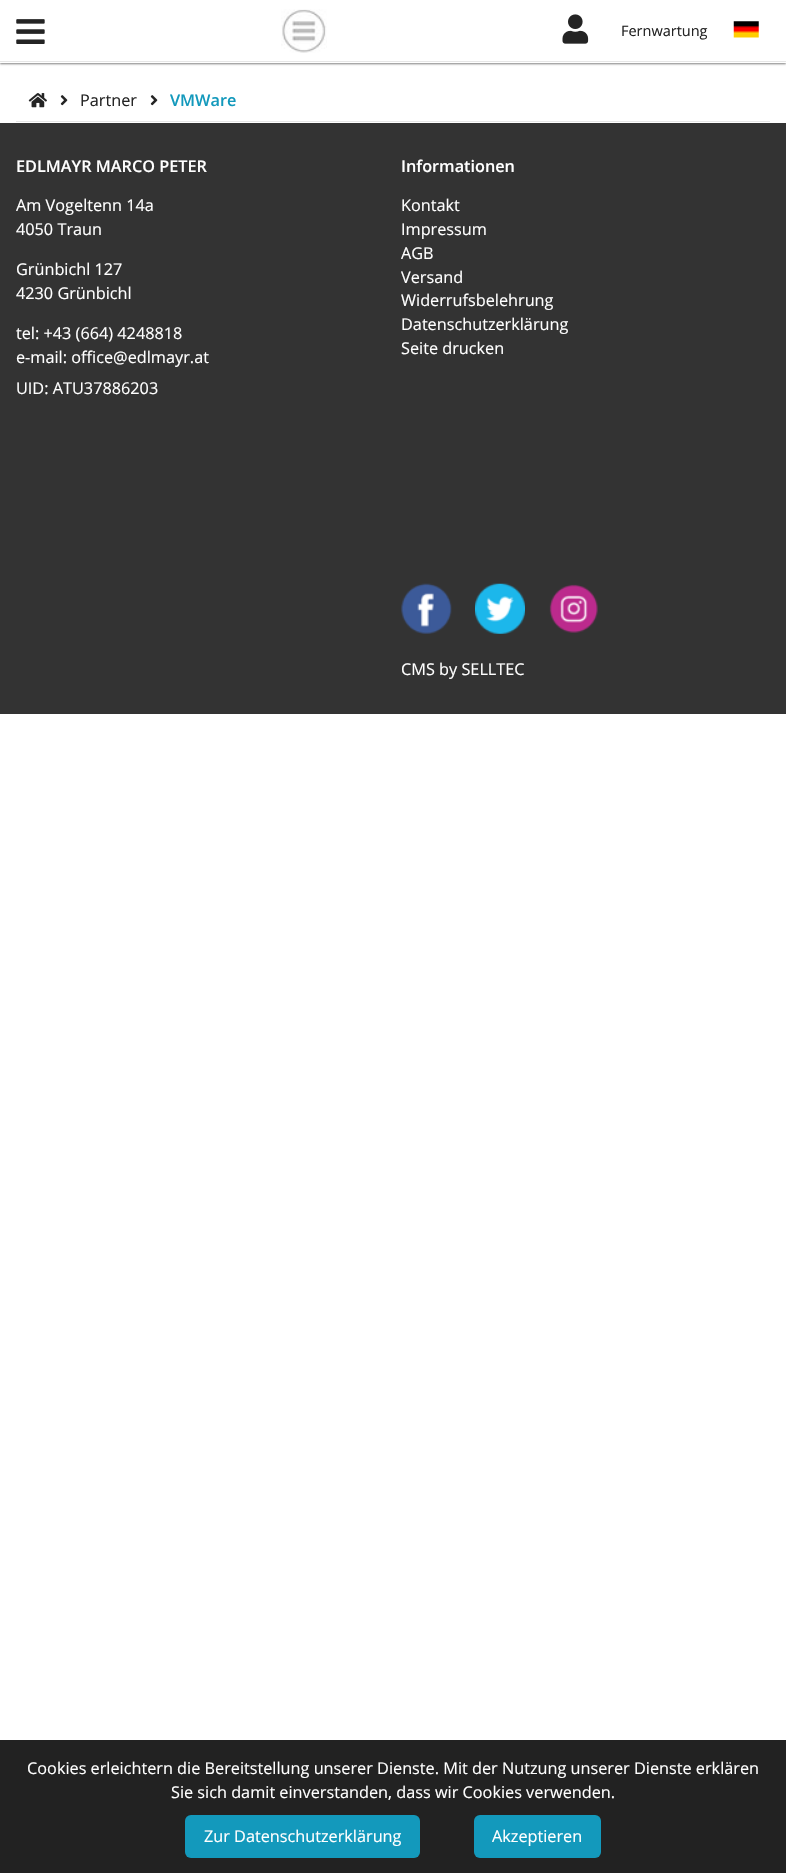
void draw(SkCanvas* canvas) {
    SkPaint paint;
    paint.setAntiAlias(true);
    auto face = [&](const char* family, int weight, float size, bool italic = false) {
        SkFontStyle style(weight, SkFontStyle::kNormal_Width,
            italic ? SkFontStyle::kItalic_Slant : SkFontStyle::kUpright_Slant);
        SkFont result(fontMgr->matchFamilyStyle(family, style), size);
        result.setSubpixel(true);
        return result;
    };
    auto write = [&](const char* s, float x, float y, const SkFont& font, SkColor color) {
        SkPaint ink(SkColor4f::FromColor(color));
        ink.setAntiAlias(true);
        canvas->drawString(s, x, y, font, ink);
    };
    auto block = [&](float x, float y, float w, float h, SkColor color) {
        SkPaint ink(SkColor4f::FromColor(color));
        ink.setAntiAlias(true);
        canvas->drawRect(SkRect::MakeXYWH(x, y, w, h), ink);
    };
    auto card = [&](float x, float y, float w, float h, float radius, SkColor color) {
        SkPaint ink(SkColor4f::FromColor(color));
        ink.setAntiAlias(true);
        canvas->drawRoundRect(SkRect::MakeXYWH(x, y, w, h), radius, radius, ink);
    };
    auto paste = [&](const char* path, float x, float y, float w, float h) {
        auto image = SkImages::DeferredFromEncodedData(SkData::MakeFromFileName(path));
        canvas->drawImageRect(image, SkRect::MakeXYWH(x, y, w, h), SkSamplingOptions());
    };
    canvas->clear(SK_ColorWHITE);
    paint.setColor(SkColorSetARGB(128, 0, 0, 0));
    paint.setMaskFilter(SkMaskFilter::MakeBlur(kNormal_SkBlurStyle, 1));
    canvas->drawRect(SkRect::MakeXYWH(0, 1, 786, 63), paint);
    paint.setMaskFilter(nullptr);
    block(0, 0, 786, 63, SK_ColorWHITE);
    block(0, 61, 786, 1, SkColorSetRGB(230, 230, 230));
    paste("pic1.png", 16, 19, 29, 25);
    paste("pic2.png", 281, 9, 46, 44);
    paste("pic3.png", 562, 14, 27, 30);
    auto kFont1 = face("Open Sans", 400, 14.5f);
    write("Fernwartung", 621, 36, kFont1, SkColorSetRGB(36, 36, 36));
    paste("pic4.png", 733, 21, 26, 17);
    block(16, 121, 754, 1, SkColorSetRGB(230, 230, 230));
    paste("pic5.png", 28, 93, 19, 15);
    paste("pic6.png", 60, 95, 8, 11);
    auto kFont2 = face("Open Sans", 400, 16.25f);
    write("Partner", 80, 106, kFont2, SkColorSetRGB(36, 36, 36));
    paste("pic6.png", 150, 95, 8, 11);
    auto kFont3 = face("Open Sans", 600, 16.25f);
    write("VMWare", 170, 106, kFont3, SkColorSetRGB(19, 153, 188));
    block(0, 123, 786, 591, SkColorSetRGB(51, 51, 51));
    write("EDLMAYR MARCO PETER", 16, 172, kFont3, SK_ColorWHITE);
    write("Am Vogeltenn 14a", 16, 211, kFont2, SK_ColorWHITE);
    write("4050 Traun", 16, 235, kFont2, SK_ColorWHITE);
    write("Grünbichl 127", 16, 275, kFont2, SK_ColorWHITE);
    write("4230 Grünbichl", 16, 299, kFont2, SK_ColorWHITE);
    write("tel: +43 (664) 4248818", 16, 339, kFont2, SK_ColorWHITE);
    write("e-mail: office@edlmayr.at", 16, 363, kFont2, SK_ColorWHITE);
    write("UID: ATU37886203", 16, 394, kFont2, SK_ColorWHITE);
    write("Informationen", 401, 172, kFont3, SK_ColorWHITE);
    write("Kontakt", 401, 211, kFont2, SK_ColorWHITE);
    write("Impressum", 401, 235, kFont2, SK_ColorWHITE);
    write("AGB", 401, 259, kFont2, SK_ColorWHITE);
    write("Versand", 401, 283, kFont2, SK_ColorWHITE);
    write("Widerrufsbelehrung", 401, 306, kFont2, SK_ColorWHITE);
    write("Datenschutzerklärung", 401, 330, kFont2, SK_ColorWHITE);
    write("Seite drucken", 401, 354, kFont2, SK_ColorWHITE);
    paste("pic7.png", 401, 583, 51, 51);
    paste("pic8.png", 475, 583, 50, 51);
    paste("pic9.png", 549, 584, 49, 49);
    write("CMS by SELLTEC", 401, 675, kFont2, SK_ColorWHITE);
    block(0, 1740, 786, 133, SkColorSetRGB(34, 34, 34));
    write("Cookies erleichtern die Bereitstellung unserer Dienste. Mit der Nutzung unserer Dienste erklären", 27, 1774, kFont2, SK_ColorWHITE);
    write("Sie sich damit einverstanden, dass wir Cookies verwenden.", 171, 1798, kFont2, SK_ColorWHITE);
    card(185, 1815, 235, 43, 6, SkColorSetRGB(19, 153, 188));
    write("Zur Datenschutzerklärung", 204, 1842, kFont2, SK_ColorWHITE);
    card(474, 1815, 127, 43, 6, SkColorSetRGB(19, 153, 188));
    write("Akzeptieren", 492, 1842, kFont2, SK_ColorWHITE);
}
